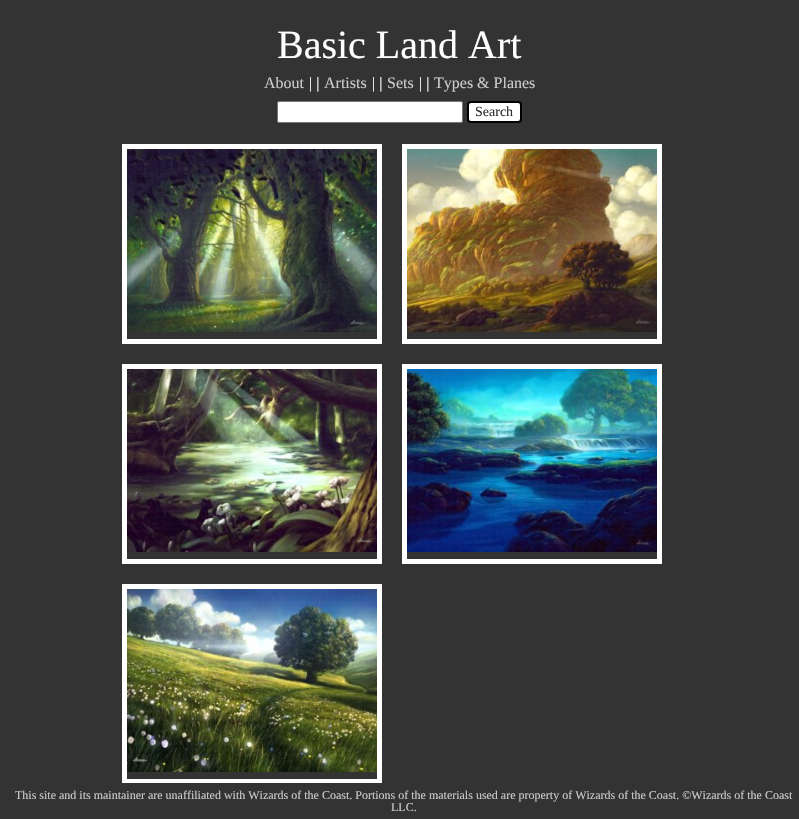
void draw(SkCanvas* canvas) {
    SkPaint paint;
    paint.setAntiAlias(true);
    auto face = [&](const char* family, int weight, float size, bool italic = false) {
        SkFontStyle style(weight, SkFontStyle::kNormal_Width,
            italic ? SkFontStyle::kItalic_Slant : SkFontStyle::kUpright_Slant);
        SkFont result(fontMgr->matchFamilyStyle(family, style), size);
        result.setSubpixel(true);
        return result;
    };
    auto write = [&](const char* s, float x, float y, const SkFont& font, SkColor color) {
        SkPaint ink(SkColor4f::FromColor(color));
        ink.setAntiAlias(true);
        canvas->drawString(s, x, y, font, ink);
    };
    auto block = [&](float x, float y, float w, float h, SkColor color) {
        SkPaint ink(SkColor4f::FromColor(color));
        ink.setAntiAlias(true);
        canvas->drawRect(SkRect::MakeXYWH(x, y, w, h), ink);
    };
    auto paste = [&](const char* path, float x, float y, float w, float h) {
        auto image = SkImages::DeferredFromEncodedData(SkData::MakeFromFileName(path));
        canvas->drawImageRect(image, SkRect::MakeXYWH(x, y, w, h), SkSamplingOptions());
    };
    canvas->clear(SkColorSetRGB(51, 51, 51));
    auto kFont1 = face("Liberation Serif", 400, 40);
    write("Basic Land Art", 277, 58, kFont1, SK_ColorWHITE);
    auto kFont2 = face("Liberation Serif", 400, 16);
    write("About", 264, 88, kFont2, SkColorSetRGB(204, 204, 204));
    write("| |", 309, 88, kFont2, SK_ColorWHITE);
    write("Artists", 324, 88, kFont2, SkColorSetRGB(204, 204, 204));
    write("| |", 372, 88, kFont2, SK_ColorWHITE);
    write("Sets", 387, 88, kFont2, SkColorSetRGB(204, 204, 204));
    write("| |", 419, 88, kFont2, SK_ColorWHITE);
    write("Types & Planes", 434, 88, kFont2, SkColorSetRGB(204, 204, 204));
    paint.setColor(SK_ColorWHITE);
    canvas->drawRoundRect(SkRect::MakeXYWH(277.5f, 101.5f, 185, 21), 1.5f, 1.5f, paint);
    paint.setStyle(SkPaint::kStroke_Style);
    paint.setStrokeWidth(1);
    paint.setColor(SkColorSetRGB(118, 118, 118));
    canvas->drawRoundRect(SkRect::MakeXYWH(277.5f, 101.5f, 185, 21), 1.5f, 1.5f, paint);
    paint.setStyle(SkPaint::kFill_Style);
    paint.setColor(SK_ColorWHITE);
    canvas->drawRoundRect(SkRect::MakeXYWH(468, 102, 53, 20), 3, 3, paint);
    paint.setStyle(SkPaint::kStroke_Style);
    paint.setStrokeWidth(2);
    paint.setColor(SK_ColorBLACK);
    canvas->drawRoundRect(SkRect::MakeXYWH(468, 102, 53, 20), 3, 3, paint);
    auto kFont3 = face("Liberation Serif", 400, 14);
    write("Search", 475, 116, kFont3, SkColorSetRGB(46, 46, 46));
    paint.setStrokeWidth(5);
    paint.setColor(SK_ColorWHITE);
    canvas->drawRect(SkRect::MakeXYWH(124.5f, 146.5f, 255, 195), paint);
    paste("pic1.png", 127, 149, 250, 183);
    canvas->drawRect(SkRect::MakeXYWH(404.5f, 146.5f, 255, 195), paint);
    paste("pic2.png", 407, 149, 250, 183);
    canvas->drawRect(SkRect::MakeXYWH(124.5f, 366.5f, 255, 195), paint);
    paste("pic3.png", 127, 369, 250, 183);
    canvas->drawRect(SkRect::MakeXYWH(404.5f, 366.5f, 255, 195), paint);
    paste("pic4.png", 407, 369, 250, 183);
    canvas->drawRect(SkRect::MakeXYWH(124.5f, 586.5f, 255, 195), paint);
    paste("pic5.png", 127, 589, 250, 183);
    block(122, 783, 260, 1, SkColorSetRGB(51, 51, 51));
    auto kFont4 = face("Liberation Serif", 400, 12);
    write("This site and its maintainer are unaffiliated with Wizards of the Coast. Portions of the materials used are property of Wizards of the Coast. ©Wizards of the Coast", 15, 799, kFont4, SkColorSetRGB(204, 204, 204));
    write("LLC.", 391, 811, kFont4, SkColorSetRGB(204, 204, 204));
}
